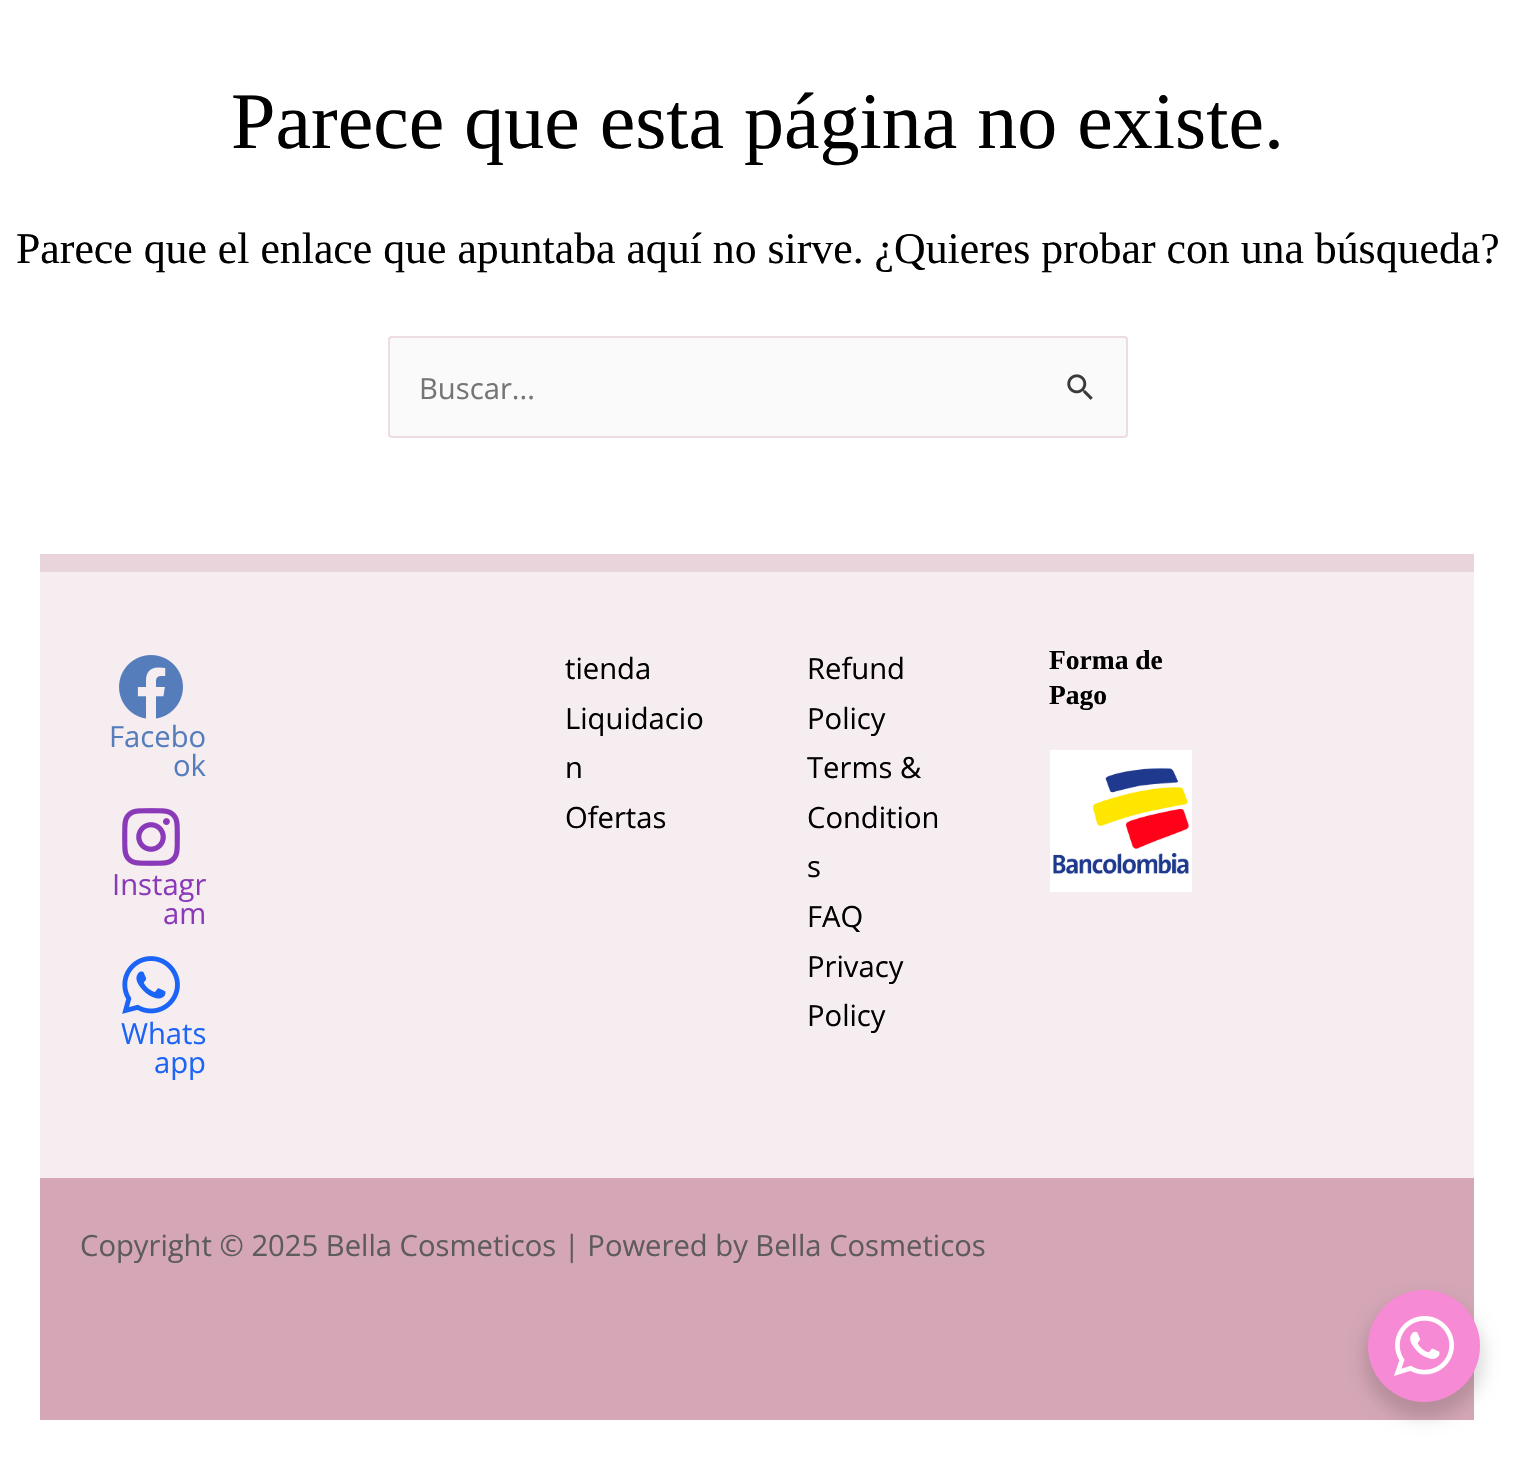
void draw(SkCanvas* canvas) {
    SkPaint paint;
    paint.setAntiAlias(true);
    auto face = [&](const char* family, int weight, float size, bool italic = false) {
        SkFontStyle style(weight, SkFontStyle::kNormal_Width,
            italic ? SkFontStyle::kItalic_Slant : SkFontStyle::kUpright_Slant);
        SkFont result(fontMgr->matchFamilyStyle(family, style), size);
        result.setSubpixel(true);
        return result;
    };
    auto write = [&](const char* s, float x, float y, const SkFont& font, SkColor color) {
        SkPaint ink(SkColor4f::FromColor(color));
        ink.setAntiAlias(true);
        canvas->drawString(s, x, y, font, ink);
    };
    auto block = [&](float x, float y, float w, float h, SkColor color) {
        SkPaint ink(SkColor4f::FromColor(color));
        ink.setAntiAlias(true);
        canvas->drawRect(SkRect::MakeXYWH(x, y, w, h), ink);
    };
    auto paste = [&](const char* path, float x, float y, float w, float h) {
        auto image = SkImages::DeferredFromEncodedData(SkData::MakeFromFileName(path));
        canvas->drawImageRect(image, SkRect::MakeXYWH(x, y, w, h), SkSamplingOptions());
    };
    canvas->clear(SK_ColorWHITE);
    auto kFont1 = face("Liberation Serif", 400, 80);
    write("Parece que esta página no existe.", 231, 148, kFont1, SK_ColorBLACK);
    auto kFont2 = face("Liberation Serif", 400, 43.8f);
    write("Parece que el enlace que apuntaba aquí no sirve. ¿Quieres probar con una búsqueda?", 16, 263, kFont2, SK_ColorBLACK);
    paint.setColor(SkColorSetRGB(250, 250, 250));
    canvas->drawRoundRect(SkRect::MakeXYWH(389, 337, 738, 100), 3, 3, paint);
    paint.setStyle(SkPaint::kStroke_Style);
    paint.setStrokeWidth(2);
    paint.setColor(SkColorSetRGB(237, 220, 226));
    canvas->drawRoundRect(SkRect::MakeXYWH(389, 337, 738, 100), 3, 3, paint);
    auto kFont3 = face("Open Sans", 400, 29.2f);
    write("Buscar...", 419, 399, kFont3, SkColorSetRGB(117, 117, 117));
    paste("pic1.png", 1067, 374, 26, 26);
    block(40, 572, 1434, 606, SkColorSetRGB(246, 237, 240));
    block(40, 554, 1434, 18, SkColorSetRGB(234, 212, 219));
    paste("pic2.png", 119, 655, 64, 64);
    write("Facebo", 109, 747, kFont3, SkColorSetRGB(85, 125, 188));
    write("ok", 173, 776, kFont3, SkColorSetRGB(85, 125, 188));
    paste("pic3.png", 122, 808, 58, 58);
    write("Instagr", 112, 895, kFont3, SkColorSetRGB(138, 58, 185));
    write("am", 163, 924, kFont3, SkColorSetRGB(138, 58, 185));
    paste("pic4.png", 122, 956, 58, 58);
    write("Whats", 121, 1044, kFont3, SkColorSetRGB(27, 100, 246));
    write("app", 154, 1073, kFont3, SkColorSetRGB(27, 100, 246));
    write("tienda", 565, 679, kFont3, SK_ColorBLACK);
    write("Liquidacio", 565, 729, kFont3, SK_ColorBLACK);
    write("n", 565, 778, kFont3, SK_ColorBLACK);
    write("Ofertas", 565, 828, kFont3, SK_ColorBLACK);
    write("Refund", 807, 679, kFont3, SK_ColorBLACK);
    write("Policy", 807, 729, kFont3, SK_ColorBLACK);
    write("Terms &", 807, 778, kFont3, SK_ColorBLACK);
    write("Condition", 807, 828, kFont3, SK_ColorBLACK);
    write("s", 807, 877, kFont3, SK_ColorBLACK);
    write("FAQ", 807, 927, kFont3, SK_ColorBLACK);
    write("Privacy", 807, 977, kFont3, SK_ColorBLACK);
    write("Policy", 807, 1026, kFont3, SK_ColorBLACK);
    auto kFont4 = face("Liberation Serif", 700, 27.5f);
    write("Forma de", 1049, 669, kFont4, SK_ColorBLACK);
    write("Pago", 1049, 704, kFont4, SK_ColorBLACK);
    paste("pic5.png", 1050, 750, 142, 142);
    block(40, 1178, 1434, 242, SkColorSetRGB(212, 166, 182));
    write("Copyright © 2025 Bella Cosmeticos | Powered by Bella Cosmeticos", 80, 1256, kFont3, SkColorSetRGB(93, 91, 91));
    paint.setStyle(SkPaint::kFill_Style);
    paint.setColor(SkColorSetARGB(36, 0, 0, 0));
    paint.setMaskFilter(SkMaskFilter::MakeBlur(kNormal_SkBlurStyle, 8));
    canvas->drawRoundRect(SkRect::MakeXYWH(1364, 1298, 120, 120), 60, 60, paint);
    paint.setMaskFilter(nullptr);
    paint.setColor(SkColorSetRGB(247, 138, 212));
    canvas->drawCircle(1424, 1346, 56, paint);
    paste("pic6.png", 1394, 1316, 60, 60);
}
